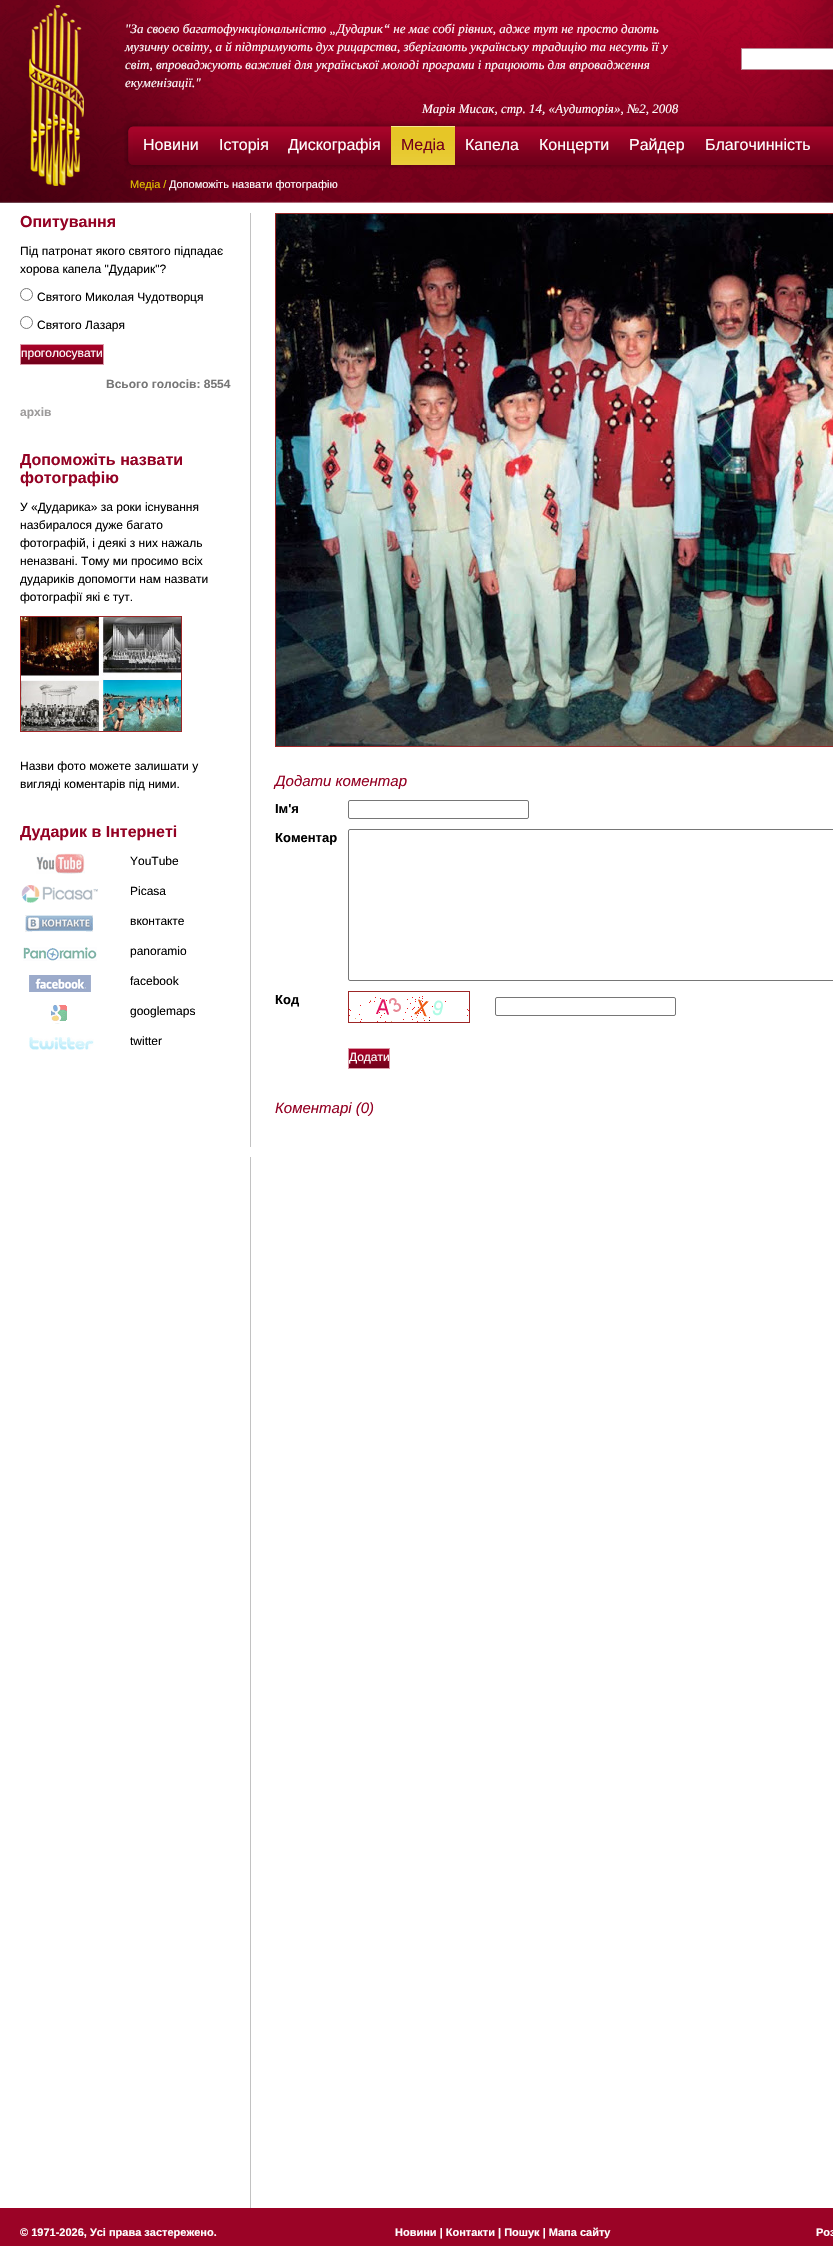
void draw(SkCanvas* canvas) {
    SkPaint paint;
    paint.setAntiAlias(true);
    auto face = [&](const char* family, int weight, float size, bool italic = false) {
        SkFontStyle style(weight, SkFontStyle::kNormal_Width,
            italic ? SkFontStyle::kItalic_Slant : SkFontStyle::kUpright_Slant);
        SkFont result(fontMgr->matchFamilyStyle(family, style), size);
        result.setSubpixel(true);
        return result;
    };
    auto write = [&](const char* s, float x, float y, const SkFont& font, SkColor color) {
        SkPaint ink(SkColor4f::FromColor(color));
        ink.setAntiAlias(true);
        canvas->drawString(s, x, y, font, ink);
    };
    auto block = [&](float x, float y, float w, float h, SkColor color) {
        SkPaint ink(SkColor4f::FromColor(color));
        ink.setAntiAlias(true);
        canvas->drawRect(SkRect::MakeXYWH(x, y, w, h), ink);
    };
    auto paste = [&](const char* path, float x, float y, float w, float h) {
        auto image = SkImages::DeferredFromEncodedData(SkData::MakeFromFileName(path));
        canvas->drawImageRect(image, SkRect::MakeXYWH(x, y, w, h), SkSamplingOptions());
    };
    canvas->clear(SK_ColorWHITE);
    block(250, 213, 1, 1995, SkColorSetRGB(194, 194, 194));
    paste("pic1.png", 0, 0, 833, 203);
    paste("pic2.png", 0, 0, 833, 203);
    paste("pic3.png", 29, 5, 55, 181);
    auto kFont1 = face("Liberation Serif", 400, 13, true);
    write("\"За своєю багатофункціональністю „Дударик“ не має собі рівних, адже тут не просто дають", 125, 33, kFont1, SK_ColorWHITE);
    write("музичну освіту, а й підтримують дух рицарства, зберігають українську традицію та несуть її у", 125, 51, kFont1, SK_ColorWHITE);
    write("світ, впроваджують важливі для української молоді програми і працюють для впровадження", 125, 69, kFont1, SK_ColorWHITE);
    write("екуменізації.\"", 125, 87, kFont1, SK_ColorWHITE);
    write("Марія Мисак, стр. 14, «Аудиторія», №2, 2008", 422, 113, kFont1, SK_ColorWHITE);
    paint.setColor(SK_ColorWHITE);
    canvas->drawRect(SkRect::MakeXYWH(741.5f, 48.5f, 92, 21), paint);
    paint.setStyle(SkPaint::kStroke_Style);
    paint.setStrokeWidth(1);
    paint.setColor(SkColorSetRGB(185, 134, 146));
    canvas->drawRect(SkRect::MakeXYWH(741.5f, 48.5f, 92, 21), paint);
    paste("pic4.png", 124, 122, 9, 47);
    paste("pic5.png", 133, 121, 700, 49);
    auto kFont2 = face("Liberation Sans", 400, 16);
    write("Новини", 143, 150, kFont2, SK_ColorWHITE);
    write("Історія", 219, 150, kFont2, SK_ColorWHITE);
    write("Дискографія", 288, 150, kFont2, SK_ColorWHITE);
    paste("pic6.png", 391, 126, 64, 39);
    write("Медіа", 401, 150, kFont2, SkColorSetRGB(115, 0, 26));
    write("Капела", 465, 150, kFont2, SK_ColorWHITE);
    write("Концерти", 539, 150, kFont2, SK_ColorWHITE);
    write("Райдер", 629, 150, kFont2, SK_ColorWHITE);
    write("Благочинність", 705, 150, kFont2, SK_ColorWHITE);
    auto kFont3 = face("Liberation Sans", 400, 11);
    write("Медіа /", 130, 188, kFont3, SkColorSetRGB(226, 197, 0));
    write("Допоможіть назвати фотографію", 169, 188, kFont3, SK_ColorWHITE);
    auto kFont4 = face("Liberation Sans", 700, 16);
    write("Опитування", 20, 227, kFont4, SkColorSetRGB(148, 2, 36));
    auto kFont5 = face("Liberation Sans", 400, 12);
    write("Під патронат якого святого підпадає", 20, 255, kFont5, SK_ColorBLACK);
    write("хорова капела \"Дударик\"?", 20, 273, kFont5, SK_ColorBLACK);
    paint.setColor(SkColorSetRGB(118, 118, 118));
    canvas->drawCircle(26.5f, 294.5f, 6, paint);
    write("Святого Миколая Чудотворця", 37, 301, kFont5, SK_ColorBLACK);
    canvas->drawCircle(26.5f, 322.5f, 6, paint);
    write("Святого Лазаря", 37, 329, kFont5, SK_ColorBLACK);
    paste("pic7.png", 21, 345, 82, 19);
    paint.setColor(SkColorSetRGB(221, 154, 169));
    canvas->drawRect(SkRect::MakeXYWH(20.5f, 344.5f, 83, 20), paint);
    write("проголосувати", 21, 357, kFont5, SK_ColorWHITE);
    auto kFont6 = face("Liberation Sans", 700, 12);
    write("Всього голосів: 8554", 106, 388, kFont6, SkColorSetRGB(119, 119, 119));
    write("архів", 20, 416, kFont6, SkColorSetRGB(156, 154, 154));
    write("Допоможіть назвати", 20, 465, kFont4, SkColorSetRGB(148, 2, 36));
    write("фотографію", 20, 483, kFont4, SkColorSetRGB(148, 2, 36));
    write("У «Дударика» за роки існування", 20, 511, kFont5, SK_ColorBLACK);
    write("назбиралося дуже багато", 20, 529, kFont5, SK_ColorBLACK);
    write("фотографій, і деякі з них нажаль", 20, 547, kFont5, SK_ColorBLACK);
    write("неназвані. Тому ми просимо всіх", 20, 565, kFont5, SK_ColorBLACK);
    write("дудариків допомогти нам назвати", 20, 583, kFont5, SK_ColorBLACK);
    write("фотографії які є тут.", 20, 601, kFont5, SK_ColorBLACK);
    paint.setColor(SkColorSetRGB(157, 38, 38));
    canvas->drawRect(SkRect::MakeXYWH(20.5f, 616.5f, 161, 115), paint);
    paste("pic8.png", 21, 617, 160, 114);
    write("Назви фото можете залишати у", 20, 770, kFont5, SK_ColorBLACK);
    write("вигляді коментарів під ними.", 20, 788, kFont5, SK_ColorBLACK);
    write("Дударик в Інтернеті", 20, 837, kFont4, SkColorSetRGB(148, 2, 36));
    paste("pic9.png", 36, 853, 49, 21);
    write("YouTube", 130, 865, kFont5, SK_ColorBLACK);
    paste("pic10.png", 21, 885, 77, 18);
    write("Picasa", 130, 895, kFont5, SK_ColorBLACK);
    paste("pic11.png", 25, 915, 68, 17);
    write("вконтакте", 130, 925, kFont5, SK_ColorBLACK);
    paste("pic12.png", 23, 947, 74, 14);
    write("panoramio", 130, 955, kFont5, SK_ColorBLACK);
    paste("pic13.png", 29, 975, 62, 17);
    write("facebook", 130, 985, kFont5, SK_ColorBLACK);
    paste("pic14.png", 51, 1005, 16, 19);
    write("googlemaps", 130, 1015, kFont5, SK_ColorBLACK);
    paste("pic15.png", 29, 1037, 65, 13);
    write("twitter", 130, 1045, kFont5, SK_ColorBLACK);
    canvas->drawRect(SkRect::MakeXYWH(275.5f, 213.5f, 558, 533), paint);
    paste("pic16.png", 276, 214, 557, 532);
    auto kFont7 = face("Liberation Sans", 400, 15, true);
    write("Додати коментар", 275, 786, kFont7, SkColorSetRGB(148, 2, 36));
    auto kFont8 = face("Liberation Sans", 700, 13);
    write("Ім'я", 275, 813, kFont8, SK_ColorBLACK);
    paint.setColor(SkColorSetRGB(118, 118, 118));
    canvas->drawRoundRect(SkRect::MakeXYWH(348.5f, 800.5f, 180, 18), 1.5f, 1.5f, paint);
    write("Коментар", 275, 842, kFont8, SK_ColorBLACK);
    canvas->drawRoundRect(SkRect::MakeXYWH(348.5f, 829.5f, 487, 151), 1.5f, 1.5f, paint);
    write("Код", 275, 1004, kFont8, SK_ColorBLACK);
    paint.setColor(SkColorSetRGB(157, 38, 38));
    canvas->drawRect(SkRect::MakeXYWH(348.5f, 991.5f, 121, 31), paint);
    paste("pic17.png", 349, 996, 120, 26);
    paint.setColor(SkColorSetRGB(118, 118, 118));
    canvas->drawRoundRect(SkRect::MakeXYWH(495.5f, 997.5f, 180, 18), 1.5f, 1.5f, paint);
    paste("pic18.png", 349, 1049, 40, 19);
    paint.setColor(SkColorSetRGB(221, 154, 169));
    canvas->drawRect(SkRect::MakeXYWH(348.5f, 1048.5f, 41, 20), paint);
    canvas->save();
    canvas->clipRect(SkRect::MakeXYWH(349, 1049, 40, 19));
    write("Додати", 349, 1061, kFont5, SK_ColorWHITE);
    canvas->restore();
    write("Коментарі (0)", 275, 1113, kFont7, SkColorSetRGB(148, 2, 36));
    block(250, 1147, 1, 10, SK_ColorWHITE);
    block(0, 2208, 833, 38, SkColorSetRGB(155, 3, 38));
    auto kFont9 = face("Liberation Sans", 700, 11);
    write("© 1971-2026, Усі права застережено.", 20, 2236, kFont9, SK_ColorWHITE);
    write("Новини | Контакти | Пошук | Мапа сайту", 395, 2236, kFont9, SK_ColorWHITE);
    write("Роз", 816, 2236, kFont9, SK_ColorWHITE);
}
